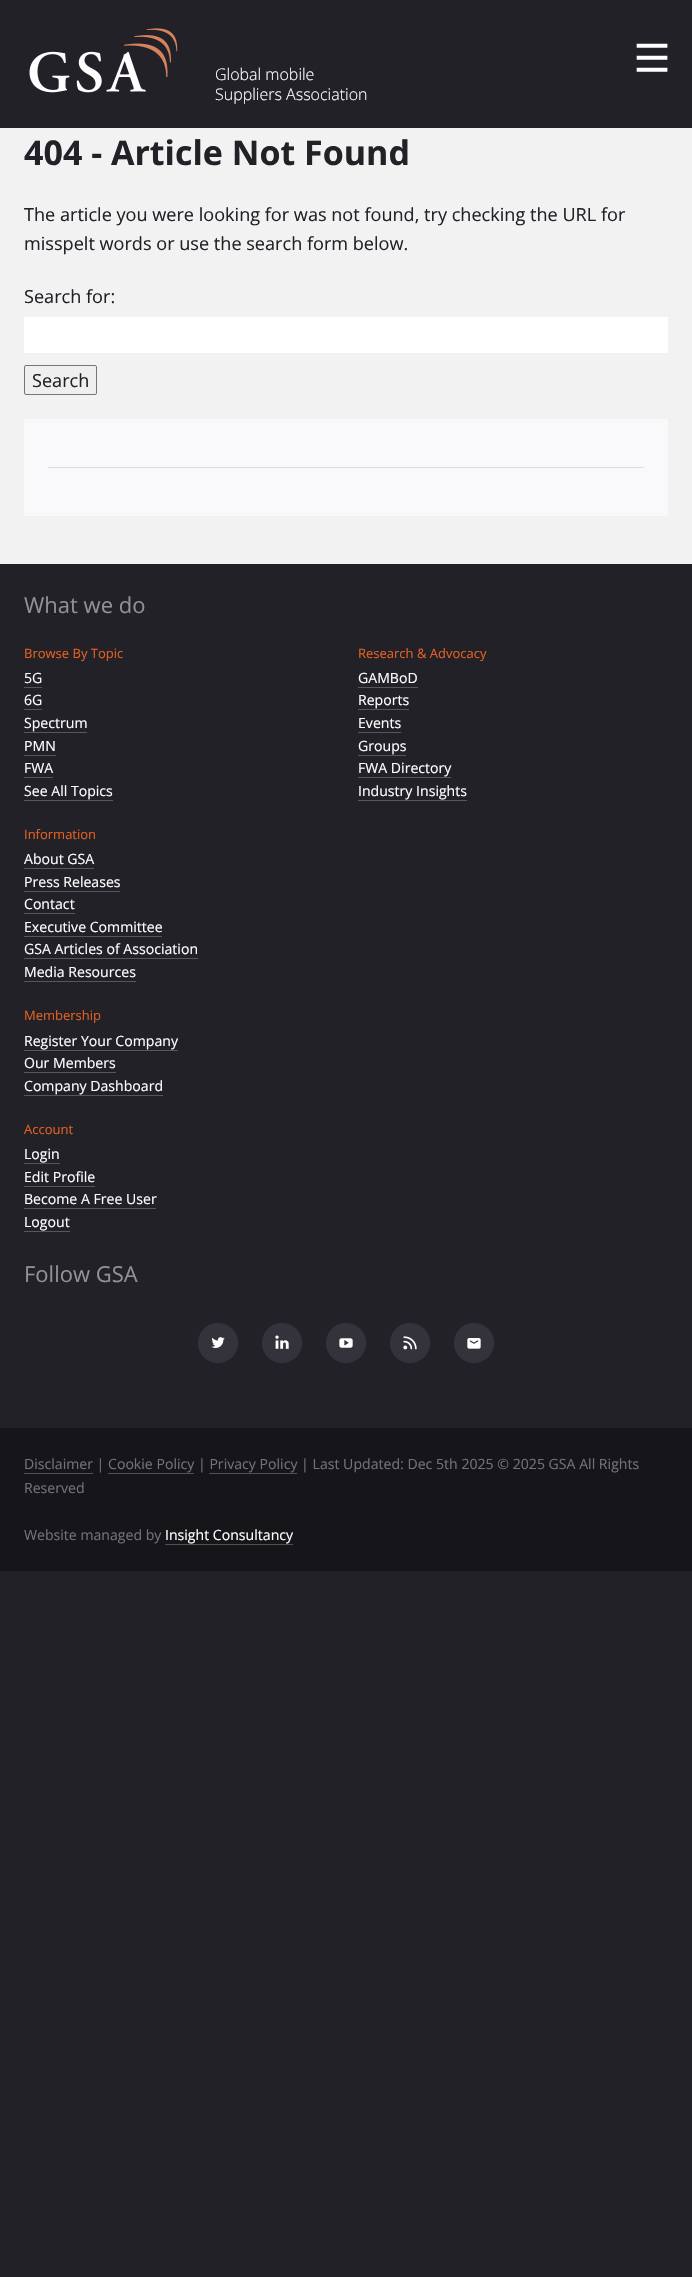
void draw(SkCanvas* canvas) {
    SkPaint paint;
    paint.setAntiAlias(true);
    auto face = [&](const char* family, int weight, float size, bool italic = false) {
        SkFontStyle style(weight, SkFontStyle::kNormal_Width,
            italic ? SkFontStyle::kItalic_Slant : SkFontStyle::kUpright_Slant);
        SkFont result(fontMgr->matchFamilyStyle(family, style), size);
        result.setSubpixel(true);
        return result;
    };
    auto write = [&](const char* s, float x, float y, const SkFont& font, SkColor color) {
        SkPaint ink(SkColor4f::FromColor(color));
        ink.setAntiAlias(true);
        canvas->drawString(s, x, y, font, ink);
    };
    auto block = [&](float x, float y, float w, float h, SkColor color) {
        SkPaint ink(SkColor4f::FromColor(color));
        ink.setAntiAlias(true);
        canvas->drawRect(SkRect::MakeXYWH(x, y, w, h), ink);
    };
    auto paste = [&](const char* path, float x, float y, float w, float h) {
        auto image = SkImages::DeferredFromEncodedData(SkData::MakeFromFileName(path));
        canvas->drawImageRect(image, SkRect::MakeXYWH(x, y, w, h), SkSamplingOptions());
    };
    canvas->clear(SkColorSetRGB(34, 33, 40));
    block(0, 128, 692, 436, SkColorSetRGB(242, 242, 242));
    paste("pic1.png", 636, 43, 32, 29);
    paste("pic2.png", 29, 28, 149, 65);
    auto kFont1 = face("Open Sans", 300, 16);
    write("Global mobile", 215, 80, kFont1, SK_ColorWHITE);
    write("Suppliers Association", 215, 100, kFont1, SK_ColorWHITE);
    auto kFont2 = face("Open Sans", 700, 34);
    write("404 - Article Not Found", 24, 165, kFont2, SkColorSetRGB(34, 33, 40));
    auto kFont3 = face("Open Sans", 400, 18.1f);
    write("The article you were looking for was not found, try checking the URL for", 24, 221, kFont3, SkColorSetRGB(34, 33, 40));
    write("misspelt words or use the search form below.", 24, 250, kFont3, SkColorSetRGB(34, 33, 40));
    write("Search for:", 24, 303, kFont3, SkColorSetRGB(34, 33, 40));
    block(24, 317, 644, 36, SK_ColorWHITE);
    paint.setColor(SkColorSetRGB(239, 239, 239));
    canvas->drawRoundRect(SkRect::MakeXYWH(24.5f, 365.5f, 72, 29), 1.5f, 1.5f, paint);
    paint.setStyle(SkPaint::kStroke_Style);
    paint.setStrokeWidth(1);
    paint.setColor(SkColorSetRGB(118, 118, 118));
    canvas->drawRoundRect(SkRect::MakeXYWH(24.5f, 365.5f, 72, 29), 1.5f, 1.5f, paint);
    write("Search", 32, 387, kFont3, SkColorSetRGB(34, 33, 40));
    block(24, 419, 644, 97, SkColorSetRGB(249, 249, 251));
    block(48, 467, 596, 1, SkColorSetRGB(221, 221, 221));
    auto kFont4 = face("Open Sans", 400, 22);
    write("What we do", 24, 613, kFont4, SkColorSetRGB(145, 144, 148));
    auto kFont5 = face("Open Sans", 400, 13);
    write("Browse By Topic", 24, 658, kFont5, SkColorSetRGB(228, 96, 33));
    auto kFont6 = face("Open Sans", 400, 14.1f);
    write("5G", 24, 683, kFont6, SK_ColorWHITE);
    block(24, 687, 18, 1, SkColorSetRGB(87, 86, 90));
    write("6G", 24, 705, kFont6, SK_ColorWHITE);
    block(24, 709, 18, 1, SkColorSetRGB(87, 86, 90));
    write("Spectrum", 24, 728, kFont6, SK_ColorWHITE);
    block(24, 732, 63, 1, SkColorSetRGB(87, 86, 90));
    write("PMN", 24, 751, kFont6, SK_ColorWHITE);
    block(24, 755, 32, 1, SkColorSetRGB(87, 86, 90));
    write("FWA", 24, 773, kFont6, SK_ColorWHITE);
    block(24, 777, 29, 1, SkColorSetRGB(87, 86, 90));
    write("See All Topics", 24, 796, kFont6, SK_ColorWHITE);
    block(24, 800, 89, 1, SkColorSetRGB(87, 86, 90));
    write("Research & Advocacy", 358, 658, kFont5, SkColorSetRGB(228, 96, 33));
    write("GAMBoD", 358, 683, kFont6, SK_ColorWHITE);
    block(358, 687, 60, 1, SkColorSetRGB(87, 86, 90));
    write("Reports", 358, 705, kFont6, SK_ColorWHITE);
    block(358, 709, 51, 1, SkColorSetRGB(87, 86, 90));
    write("Events", 358, 728, kFont6, SK_ColorWHITE);
    block(358, 732, 43, 1, SkColorSetRGB(87, 86, 90));
    write("Groups", 358, 751, kFont6, SK_ColorWHITE);
    block(358, 755, 48, 1, SkColorSetRGB(87, 86, 90));
    write("FWA Directory", 358, 773, kFont6, SK_ColorWHITE);
    block(358, 777, 93, 1, SkColorSetRGB(87, 86, 90));
    write("Industry Insights", 358, 796, kFont6, SK_ColorWHITE);
    block(358, 800, 109, 1, SkColorSetRGB(87, 86, 90));
    write("Information", 24, 839, kFont5, SkColorSetRGB(228, 96, 33));
    write("About GSA", 24, 864, kFont6, SK_ColorWHITE);
    block(24, 868, 70, 1, SkColorSetRGB(87, 86, 90));
    write("Press Releases", 24, 887, kFont6, SK_ColorWHITE);
    block(24, 891, 96, 1, SkColorSetRGB(87, 86, 90));
    write("Contact", 24, 909, kFont6, SK_ColorWHITE);
    block(24, 913, 51, 1, SkColorSetRGB(87, 86, 90));
    write("Executive Committee", 24, 932, kFont6, SK_ColorWHITE);
    block(24, 936, 138, 1, SkColorSetRGB(87, 86, 90));
    write("GSA Articles of Association", 24, 954, kFont6, SK_ColorWHITE);
    block(24, 958, 174, 1, SkColorSetRGB(87, 86, 90));
    write("Media Resources", 24, 977, kFont6, SK_ColorWHITE);
    block(24, 981, 112, 1, SkColorSetRGB(87, 86, 90));
    write("Membership", 24, 1020, kFont5, SkColorSetRGB(228, 96, 33));
    write("Register Your Company", 24, 1046, kFont6, SK_ColorWHITE);
    block(24, 1050, 154, 1, SkColorSetRGB(87, 86, 90));
    write("Our Members", 24, 1068, kFont6, SK_ColorWHITE);
    block(24, 1072, 92, 1, SkColorSetRGB(87, 86, 90));
    write("Company Dashboard", 24, 1091, kFont6, SK_ColorWHITE);
    block(24, 1095, 139, 1, SkColorSetRGB(87, 86, 90));
    write("Account", 24, 1134, kFont5, SkColorSetRGB(228, 96, 33));
    write("Login", 24, 1159, kFont6, SK_ColorWHITE);
    block(24, 1163, 36, 1, SkColorSetRGB(87, 86, 90));
    write("Edit Profile", 24, 1182, kFont6, SK_ColorWHITE);
    block(24, 1186, 71, 1, SkColorSetRGB(87, 86, 90));
    write("Become A Free User", 24, 1204, kFont6, SK_ColorWHITE);
    block(24, 1208, 132, 1, SkColorSetRGB(87, 86, 90));
    write("Logout", 24, 1227, kFont6, SK_ColorWHITE);
    block(24, 1231, 46, 1, SkColorSetRGB(87, 86, 90));
    write("Follow GSA", 24, 1282, kFont4, SkColorSetRGB(145, 144, 148));
    paste("pic3.png", 198, 1323, 40, 40);
    paste("pic4.png", 262, 1323, 40, 40);
    paste("pic5.png", 326, 1323, 40, 40);
    paste("pic6.png", 390, 1323, 40, 40);
    paste("pic7.png", 454, 1323, 40, 40);
    block(0, 1428, 692, 143, SkColorSetRGB(22, 21, 26));
    write("Disclaimer | Cookie Policy | Privacy Policy | Last Updated: Dec 5th 2025 © 2025 GSA All Rights", 24, 1469, kFont6, SkColorSetRGB(115, 115, 118));
    block(24, 1473, 69, 1, SkColorSetRGB(80, 79, 82));
    block(108, 1473, 86, 1, SkColorSetRGB(80, 79, 82));
    block(209, 1473, 88, 1, SkColorSetRGB(80, 79, 82));
    write("Reserved", 24, 1493, kFont6, SkColorSetRGB(115, 115, 118));
    write("Website managed by", 24, 1540, kFont6, SkColorSetRGB(115, 115, 118));
    write("Insight Consultancy", 165, 1540, kFont6, SK_ColorWHITE);
    block(165, 1544, 128, 1, SkColorSetRGB(80, 79, 82));
}
